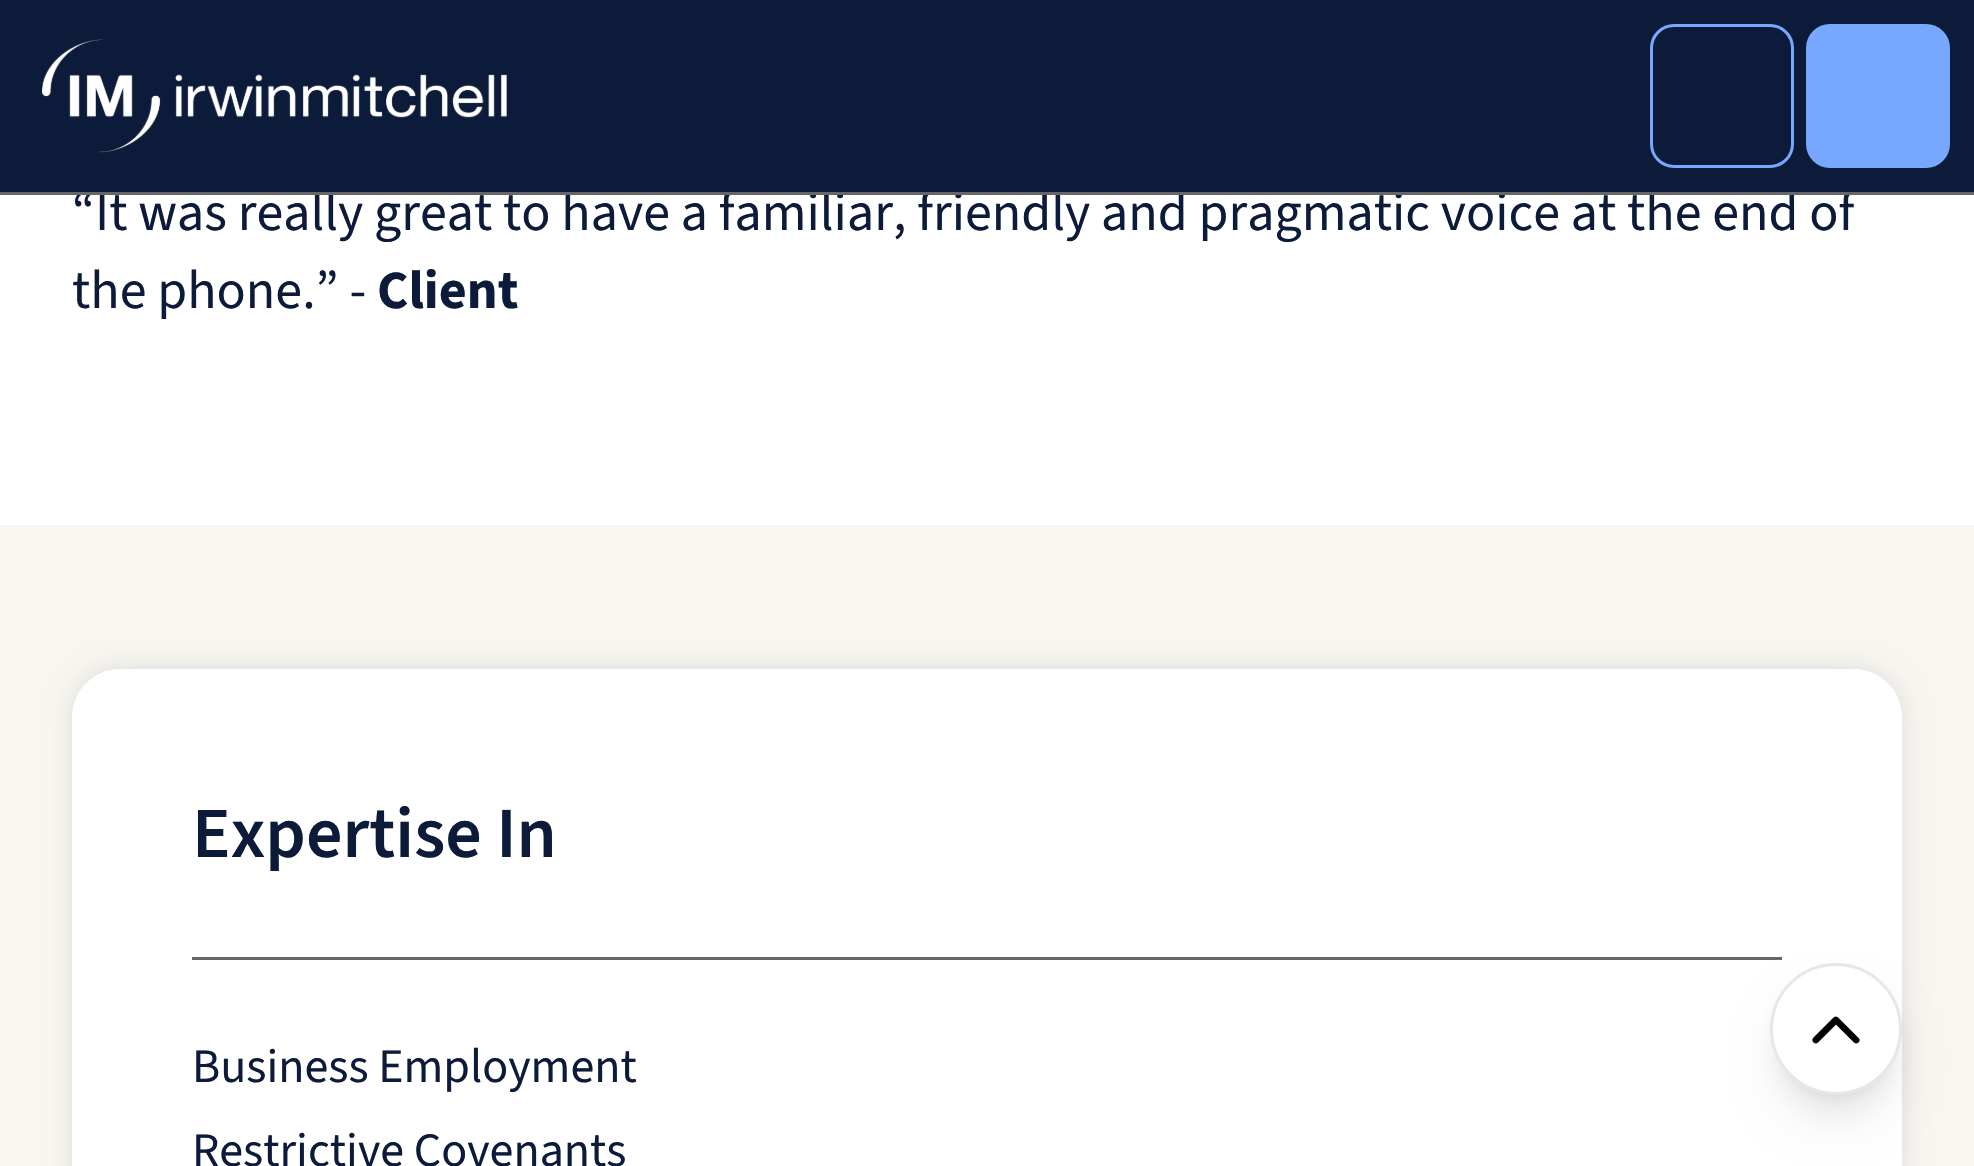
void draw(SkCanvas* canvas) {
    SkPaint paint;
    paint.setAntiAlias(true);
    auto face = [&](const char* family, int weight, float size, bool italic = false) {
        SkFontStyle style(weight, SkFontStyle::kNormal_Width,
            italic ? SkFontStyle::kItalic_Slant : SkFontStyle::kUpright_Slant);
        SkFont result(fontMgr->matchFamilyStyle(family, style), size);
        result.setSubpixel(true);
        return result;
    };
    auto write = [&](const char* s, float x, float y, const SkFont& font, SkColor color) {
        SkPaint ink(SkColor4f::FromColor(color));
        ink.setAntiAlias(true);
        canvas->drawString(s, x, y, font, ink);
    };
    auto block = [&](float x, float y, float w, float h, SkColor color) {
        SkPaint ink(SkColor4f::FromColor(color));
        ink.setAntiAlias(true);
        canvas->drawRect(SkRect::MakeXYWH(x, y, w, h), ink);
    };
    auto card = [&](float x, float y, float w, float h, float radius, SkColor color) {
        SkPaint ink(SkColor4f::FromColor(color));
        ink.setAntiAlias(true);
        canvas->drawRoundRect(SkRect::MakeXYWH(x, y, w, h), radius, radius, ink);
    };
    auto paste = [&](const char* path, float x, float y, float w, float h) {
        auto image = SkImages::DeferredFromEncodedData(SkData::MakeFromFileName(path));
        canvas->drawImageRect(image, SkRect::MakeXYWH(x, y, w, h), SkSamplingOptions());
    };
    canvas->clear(SK_ColorWHITE);
    block(0, 0, 1974, 192, SkColorSetRGB(12, 27, 57));
    auto kFont1 = face("Source Sans 3", 400, 54);
    write("“It was really great to have a familiar, friendly and pragmatic voice at the end of", 72, 230, kFont1, SkColorSetRGB(12, 27, 57));
    block(0, 192, 1974, 3, SkColorSetRGB(102, 102, 102));
    paste("pic1.png", 42, 39, 465, 114);
    paint.setStyle(SkPaint::kStroke_Style);
    paint.setStrokeWidth(3);
    paint.setColor(SkColorSetRGB(120, 167, 255));
    canvas->drawRoundRect(SkRect::MakeXYWH(1651.5f, 25.5f, 141, 141), 22.5f, 22.5f, paint);
    card(1806, 24, 144, 144, 24, SkColorSetRGB(120, 167, 255));
    write("the phone.” -", 72, 308, kFont1, SkColorSetRGB(12, 27, 57));
    auto kFont2 = face("Source Sans 3", 700, 54);
    write("Client", 377, 308, kFont2, SkColorSetRGB(12, 27, 57));
    block(0, 525, 1974, 641, SkColorSetRGB(248, 246, 241));
    paint.setStyle(SkPaint::kFill_Style);
    paint.setColor(SkColorSetARGB(26, 0, 0, 0));
    paint.setMaskFilter(SkMaskFilter::MakeBlur(kNormal_SkBlurStyle, 12));
    canvas->drawRoundRect(SkRect::MakeXYWH(72, 669, 1830, 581), 48, 48, paint);
    paint.setMaskFilter(nullptr);
    card(72, 669, 1830, 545, 48, SK_ColorWHITE);
    block(192, 957, 1590, 3, SkColorSetRGB(102, 102, 102));
    auto kFont3 = face("Source Sans 3", 600, 72);
    write("Expertise In", 192, 857, kFont3, SkColorSetRGB(12, 27, 57));
    auto kFont4 = face("Source Sans 3", 400, 48);
    write("Business Employment", 192, 1082, kFont4, SkColorSetRGB(12, 27, 57));
    write("Restrictive Covenants", 192, 1166, kFont4, SkColorSetRGB(12, 27, 57));
    paint.setMaskFilter(SkMaskFilter::MakeBlur(kNormal_SkBlurStyle, 9));
    canvas->drawRoundRect(SkRect::MakeXYWH(1782, 987, 108, 108), 54, 54, paint);
    paint.setMaskFilter(nullptr);
    paint.setMaskFilter(SkMaskFilter::MakeBlur(kNormal_SkBlurStyle, 22.5f));
    canvas->drawRoundRect(SkRect::MakeXYWH(1779, 1002, 114, 114), 57, 57, paint);
    paint.setMaskFilter(nullptr);
    paint.setColor(SK_ColorWHITE);
    canvas->drawCircle(1836, 1029, 64.5f, paint);
    paint.setStyle(SkPaint::kStroke_Style);
    paint.setColor(SkColorSetRGB(229, 231, 235));
    canvas->drawCircle(1836, 1029, 64.5f, paint);
    paste("pic2.png", 1812, 1016, 48, 28);
}
